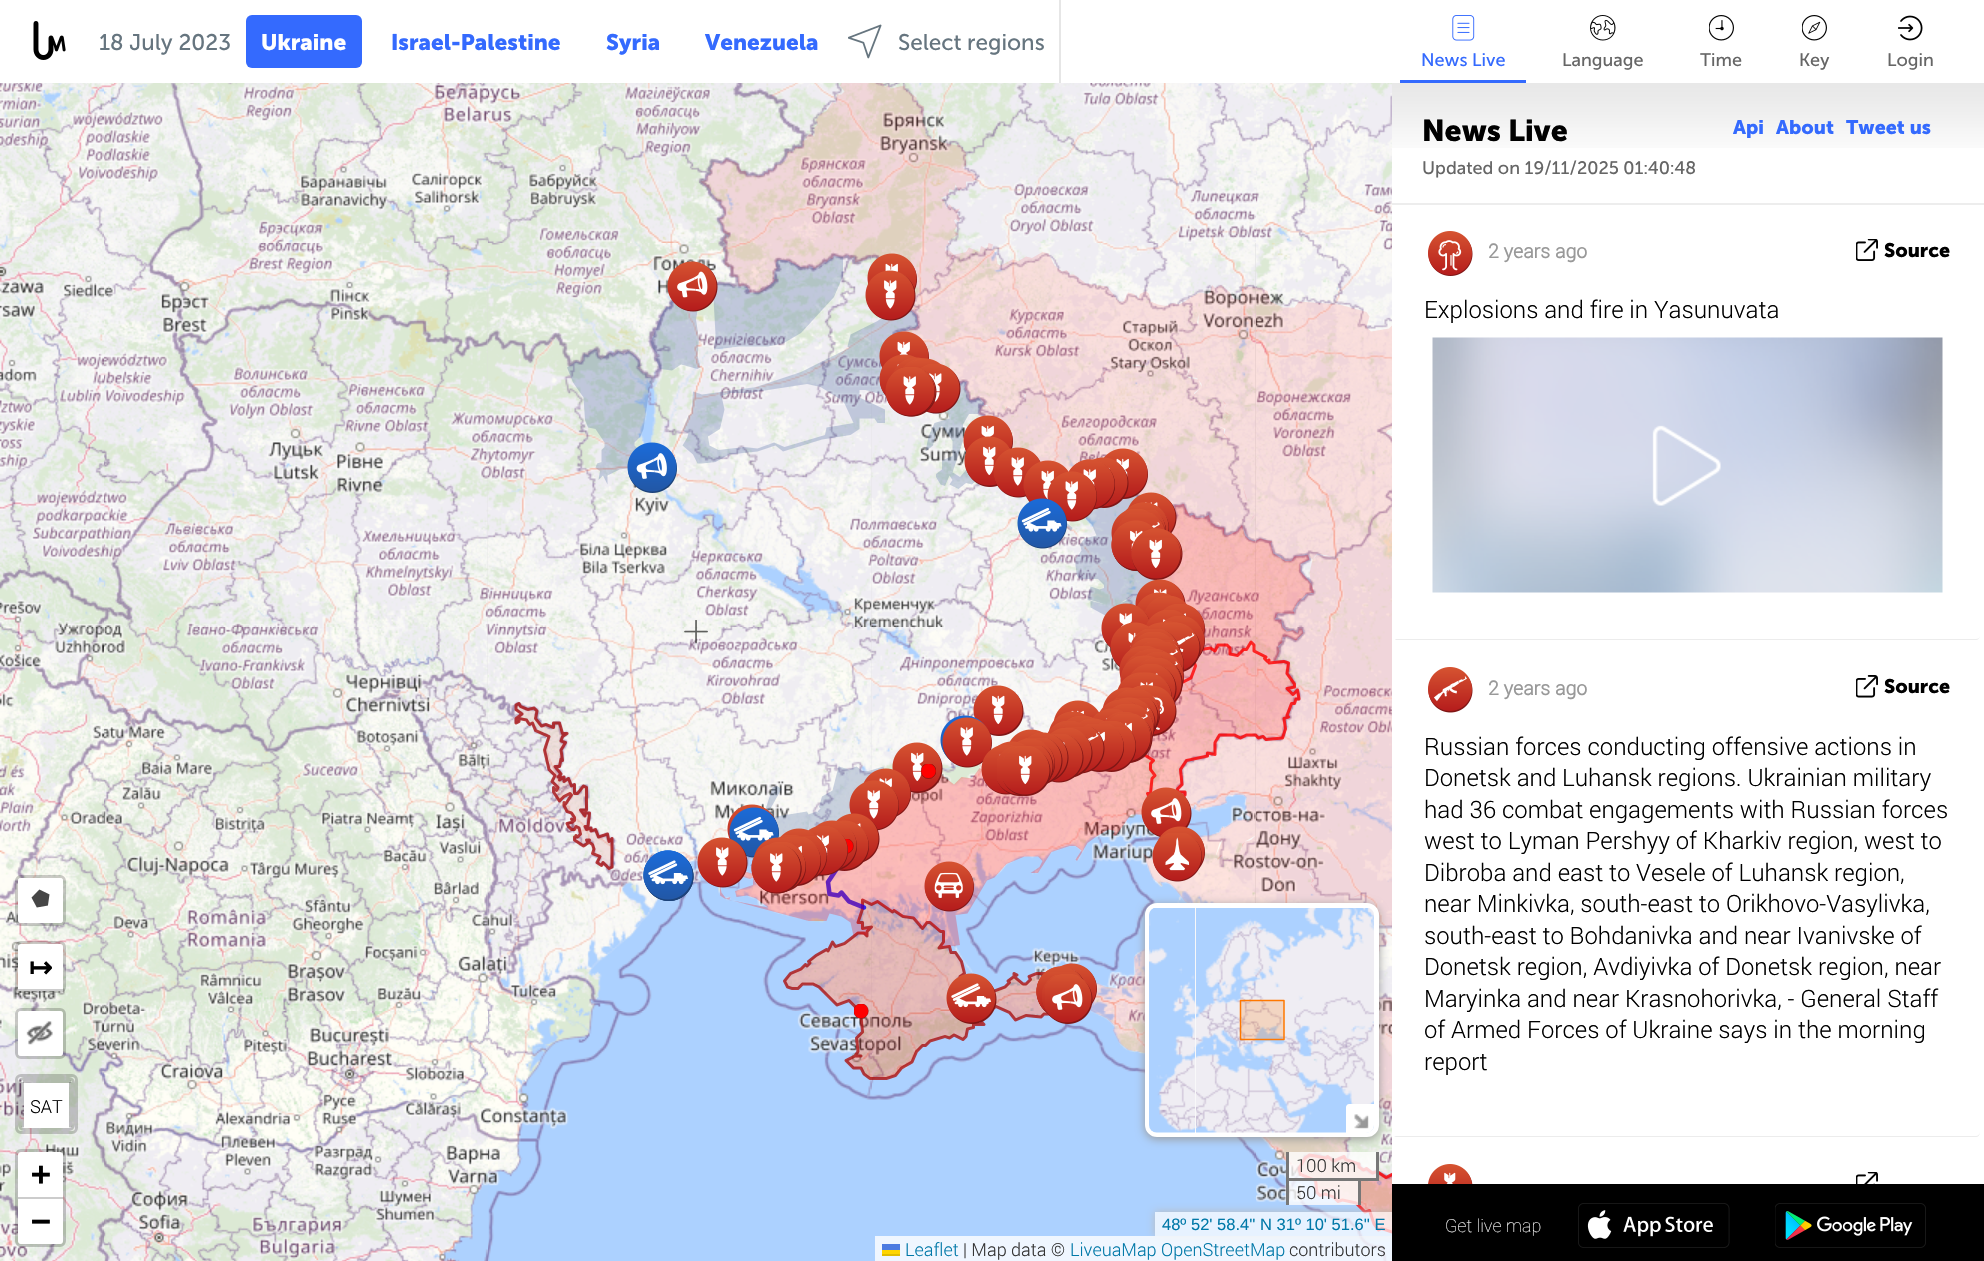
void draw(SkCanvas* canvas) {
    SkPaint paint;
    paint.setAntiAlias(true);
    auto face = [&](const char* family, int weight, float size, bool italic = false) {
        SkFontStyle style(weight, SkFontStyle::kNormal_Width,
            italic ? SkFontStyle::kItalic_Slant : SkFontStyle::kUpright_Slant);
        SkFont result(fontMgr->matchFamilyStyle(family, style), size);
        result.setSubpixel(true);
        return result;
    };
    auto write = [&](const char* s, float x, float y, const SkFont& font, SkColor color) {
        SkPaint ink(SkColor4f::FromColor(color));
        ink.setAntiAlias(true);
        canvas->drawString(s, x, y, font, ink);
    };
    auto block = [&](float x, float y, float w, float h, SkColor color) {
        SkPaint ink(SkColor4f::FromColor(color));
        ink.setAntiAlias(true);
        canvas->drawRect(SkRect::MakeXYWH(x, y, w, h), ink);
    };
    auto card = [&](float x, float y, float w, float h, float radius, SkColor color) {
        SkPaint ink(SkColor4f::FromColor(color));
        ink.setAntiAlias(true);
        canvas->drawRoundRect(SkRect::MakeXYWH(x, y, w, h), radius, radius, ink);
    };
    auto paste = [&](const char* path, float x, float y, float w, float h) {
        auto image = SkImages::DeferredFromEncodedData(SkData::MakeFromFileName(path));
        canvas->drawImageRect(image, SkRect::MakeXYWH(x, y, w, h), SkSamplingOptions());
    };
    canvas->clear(SkColorSetRGB(221, 221, 221));
    block(0, 0, 1984, 83, SK_ColorWHITE);
    paste("pic1.png", 33, 21, 33, 39);
    auto kFont1 = face("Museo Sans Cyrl", 400, 22.5f);
    write("18 July 2023", 99, 50, kFont1, SkColorSetRGB(102, 117, 127));
    card(246, 15, 116, 53, 6, SkColorSetRGB(52, 106, 254));
    auto kFont2 = face("Museo Sans Cyrl", 700, 22.5f);
    write("Ukraine", 261, 50, kFont2, SK_ColorWHITE);
    write("Israel-Palestine", 391, 50, kFont2, SkColorSetRGB(52, 106, 254));
    write("Syria", 606, 50, kFont2, SkColorSetRGB(52, 106, 254));
    write("Venezuela", 705, 50, kFont2, SkColorSetRGB(52, 106, 254));
    paste("pic2.png", 848, 24, 34, 35);
    write("Select regions", 898, 50, kFont1, SkColorSetRGB(102, 117, 127));
    block(1059, 0, 2, 83, SkColorSetRGB(230, 230, 230));
    paste("pic3.png", 0, 83, 104, 160);
    paste("pic4.png", 104, 83, 384, 160);
    paste("pic5.png", 488, 83, 384, 160);
    paste("pic6.png", 872, 83, 384, 160);
    paste("pic7.png", 1256, 83, 136, 160);
    paste("pic8.png", 0, 243, 104, 384);
    paste("pic10.png", 487, 243, 385, 384);
    paste("pic9.png", 104, 243, 384, 384);
    paste("pic11.png", 871, 243, 385, 384);
    paste("pic12.png", 1256, 243, 136, 384);
    paste("pic13.png", 0, 627, 104, 384);
    paste("pic15.png", 487, 627, 385, 384);
    paste("pic14.png", 104, 627, 384, 384);
    paste("pic16.png", 871, 627, 385, 384);
    paste("pic17.png", 1256, 627, 136, 384);
    paste("pic18.png", 0, 1011, 104, 250);
    paste("pic19.png", 104, 1011, 384, 250);
    paste("pic20.png", 488, 1011, 384, 250);
    paste("pic21.png", 872, 1011, 384, 250);
    paste("pic22.png", 1256, 1011, 136, 250);
    paste("pic24.png", 684, 620, 24, 24);
    paste("pic23.png", 514, 83, 878, 1151);
    paste("pic25.png", 667, 261, 51, 51);
    paste("pic26.png", 867, 253, 50, 38);
    paste("pic27.png", 865, 270, 51, 51);
    paste("pic28.png", 879, 331, 50, 38);
    paste("pic29.png", 879, 354, 38, 43);
    paste("pic30.png", 892, 357, 33, 18);
    paste("pic31.png", 902, 358, 29, 10);
    paste("pic32.png", 905, 358, 37, 11);
    paste("pic34.png", 919, 364, 42, 50);
    paste("pic33.png", 887, 367, 50, 50);
    paste("pic35.png", 885, 368, 50, 49);
    paste("pic36.png", 963, 415, 50, 38);
    paste("pic37.png", 627, 442, 50, 51);
    paste("pic38.png", 964, 436, 47, 51);
    paste("pic39.png", 993, 447, 48, 51);
    paste("pic40.png", 1103, 448, 45, 51);
    paste("pic41.png", 1092, 457, 37, 51);
    paste("pic42.png", 1068, 459, 47, 51);
    paste("pic44.png", 1068, 459, 47, 51);
    paste("pic43.png", 1023, 460, 46, 43);
    paste("pic46.png", 1047, 471, 50, 51);
    paste("pic45.png", 1017, 498, 50, 51);
    paste("pic47.png", 1127, 492, 50, 42);
    paste("pic48.png", 1124, 502, 45, 30);
    paste("pic49.png", 1124, 502, 45, 30);
    paste("pic51.png", 1123, 510, 43, 21);
    paste("pic52.png", 1123, 510, 43, 21);
    paste("pic50.png", 1111, 509, 41, 31);
    paste("pic53.png", 1117, 513, 49, 18);
    paste("pic55.png", 1117, 520, 48, 10);
    paste("pic54.png", 1111, 520, 44, 51);
    paste("pic56.png", 1111, 526, 44, 45);
    paste("pic57.png", 1132, 528, 44, 40);
    paste("pic58.png", 1137, 528, 46, 50);
    paste("pic59.png", 1131, 538, 50, 42);
    paste("pic60.png", 1135, 579, 51, 28);
    paste("pic61.png", 1136, 592, 36, 21);
    paste("pic63.png", 1144, 596, 44, 24);
    paste("pic62.png", 1101, 603, 49, 45);
    paste("pic64.png", 1162, 604, 43, 32);
    paste("pic65.png", 1145, 610, 42, 17);
    paste("pic66.png", 1162, 616, 43, 42);
    paste("pic70.png", 1162, 622, 22, 3);
    paste("pic68.png", 1159, 621, 18, 3);
    paste("pic69.png", 1148, 622, 22, 7);
    paste("pic67.png", 1110, 622, 42, 46);
    paste("pic71.png", 1158, 623, 43, 49);
    paste("pic72.png", 1130, 629, 50, 21);
    paste("pic74.png", 1136, 637, 45, 15);
    paste("pic76.png", 1136, 638, 45, 14);
    paste("pic73.png", 1130, 632, 46, 18);
    paste("pic78.png", 1138, 641, 38, 3);
    paste("pic80.png", 1174, 642, 2, 2);
    paste("pic77.png", 1140, 640, 43, 18);
    paste("pic75.png", 1128, 638, 37, 14);
    paste("pic79.png", 1142, 642, 42, 30);
    paste("pic82.png", 1142, 645, 42, 27);
    paste("pic83.png", 1128, 648, 6, 4);
    paste("pic81.png", 1119, 646, 38, 33);
    paste("pic84.png", 1140, 649, 30, 6);
    paste("pic85.png", 1131, 651, 34, 7);
    paste("pic86.png", 1133, 654, 16, 2);
    paste("pic87.png", 1145, 652, 39, 35);
    paste("pic89.png", 1123, 656, 43, 14);
    paste("pic88.png", 1120, 655, 36, 30);
    paste("pic90.png", 1137, 658, 46, 41);
    paste("pic91.png", 1139, 663, 44, 36);
    paste("pic94.png", 1137, 667, 46, 36);
    paste("pic92.png", 1129, 664, 48, 37);
    paste("pic93.png", 1117, 672, 29, 18);
    paste("pic95.png", 973, 685, 51, 51);
    paste("pic96.png", 1124, 672, 48, 25);
    paste("pic97.png", 1132, 685, 18, 4);
    paste("pic98.png", 1132, 685, 18, 4);
    paste("pic101.png", 1138, 685, 16, 51);
    paste("pic103.png", 1138, 685, 16, 51);
    paste("pic99.png", 1132, 685, 17, 5);
    paste("pic100.png", 1137, 685, 40, 51);
    paste("pic102.png", 1102, 687, 36, 22);
    paste("pic104.png", 1113, 690, 47, 41);
    paste("pic107.png", 1113, 698, 46, 35);
    paste("pic111.png", 1144, 702, 15, 31);
    paste("pic105.png", 1118, 697, 31, 10);
    paste("pic109.png", 1131, 702, 25, 32);
    paste("pic108.png", 1099, 700, 39, 13);
    paste("pic106.png", 1053, 700, 47, 22);
    paste("pic112.png", 1106, 708, 7, 2);
    paste("pic110.png", 1111, 704, 29, 5);
    paste("pic113.png", 1113, 704, 41, 35);
    paste("pic114.png", 1048, 711, 41, 22);
    paste("pic115.png", 1092, 709, 33, 13);
    paste("pic116.png", 1104, 712, 36, 10);
    paste("pic117.png", 940, 715, 48, 50);
    paste("pic118.png", 1066, 716, 29, 5);
    paste("pic119.png", 1108, 714, 45, 49);
    paste("pic120.png", 942, 717, 50, 51);
    paste("pic121.png", 1066, 717, 29, 6);
    paste("pic123.png", 1079, 718, 27, 6);
    paste("pic122.png", 1047, 721, 35, 13);
    paste("pic126.png", 1119, 722, 32, 41);
    paste("pic124.png", 1098, 721, 38, 39);
    paste("pic125.png", 1050, 724, 11, 10);
    paste("pic127.png", 1053, 724, 14, 8);
    paste("pic128.png", 1060, 724, 29, 5);
    paste("pic131.png", 1105, 727, 31, 45);
    paste("pic129.png", 1083, 724, 41, 48);
    paste("pic130.png", 1065, 727, 40, 47);
    paste("pic132.png", 1009, 729, 35, 14);
    paste("pic133.png", 1050, 728, 43, 50);
    paste("pic136.png", 1050, 734, 34, 49);
    paste("pic134.png", 1026, 732, 43, 51);
    paste("pic135.png", 1021, 738, 42, 47);
    paste("pic137.png", 892, 742, 51, 51);
    paste("pic139.png", 1017, 739, 38, 41);
    paste("pic138.png", 995, 741, 31, 7);
    paste("pic140.png", 981, 745, 34, 50);
    paste("pic141.png", 997, 746, 30, 50);
    paste("pic143.png", 1030, 746, 24, 40);
    paste("pic142.png", 1003, 746, 48, 50);
    canvas->save();
    canvas->clipRect(SkRect::MakeXYWH(921, 764, 15, 15));
    paint.setStyle(SkPaint::kStroke_Style);
    paint.setStrokeWidth(0.2f);
    paint.setColor(SK_ColorBLACK);
    canvas->drawCircle(928.5f, 771, 7.5f, paint);
    canvas->restore();
    paste("pic144.png", 863, 768, 48, 49);
    canvas->save();
    canvas->clipRect(SkRect::MakeXYWH(921, 764, 15, 15));
    paint.setStyle(SkPaint::kFill_Style);
    paint.setColor(SkColorSetRGB(255, 0, 0));
    canvas->drawCircle(928.5f, 771, 7.5f, paint);
    paint.setStyle(SkPaint::kStroke_Style);
    paint.setColor(SK_ColorBLACK);
    canvas->drawCircle(928.5f, 771, 7.5f, paint);
    canvas->restore();
    paste("pic145.png", 727, 804, 51, 36);
    paste("pic146.png", 849, 780, 50, 51);
    paste("pic147.png", 1141, 787, 51, 50);
    paste("pic148.png", 729, 807, 50, 51);
    paste("pic150.png", 836, 813, 44, 50);
    paste("pic153.png", 837, 820, 32, 51);
    paste("pic149.png", 814, 820, 43, 51);
    canvas->save();
    canvas->clipRect(SkRect::MakeXYWH(839, 839, 15, 15));
    paint.setStyle(SkPaint::kFill_Style);
    paint.setColor(SkColorSetRGB(255, 0, 0));
    canvas->drawCircle(846, 846, 7.5f, paint);
    paint.setStyle(SkPaint::kStroke_Style);
    paint.setColor(SK_ColorBLACK);
    canvas->drawCircle(846, 846, 7.5f, paint);
    canvas->restore();
    paste("pic152.png", 807, 826, 41, 50);
    paste("pic151.png", 779, 828, 42, 13);
    paste("pic154.png", 1156, 826, 49, 46);
    paste("pic155.png", 697, 837, 51, 51);
    paste("pic157.png", 799, 836, 28, 44);
    paste("pic156.png", 778, 835, 24, 4);
    paste("pic158.png", 1152, 833, 50, 49);
    paste("pic160.png", 783, 837, 38, 49);
    paste("pic159.png", 753, 837, 49, 23);
    paste("pic161.png", 765, 842, 41, 50);
    paste("pic162.png", 751, 845, 51, 49);
    paste("pic163.png", 643, 850, 51, 51);
    paste("pic164.png", 751, 849, 51, 45);
    paste("pic165.png", 643, 850, 51, 51);
    paste("pic166.png", 643, 850, 51, 51);
    paste("pic167.png", 924, 861, 50, 51);
    paste("pic168.png", 1059, 963, 38, 42);
    paste("pic169.png", 1036, 966, 49, 42);
    paste("pic170.png", 1036, 966, 49, 42);
    paste("pic171.png", 946, 973, 51, 51);
    paste("pic172.png", 1036, 972, 47, 43);
    paste("pic173.png", 1036, 974, 47, 41);
    paste("pic175.png", 1042, 975, 48, 47);
    paste("pic174.png", 1045, 974, 48, 50);
    canvas->save();
    canvas->clipRect(SkRect::MakeXYWH(854, 1004, 15, 15));
    paint.setStyle(SkPaint::kFill_Style);
    paint.setColor(SkColorSetRGB(255, 0, 0));
    canvas->drawCircle(861, 1011, 7.5f, paint);
    paint.setStyle(SkPaint::kStroke_Style);
    paint.setColor(SK_ColorBLACK);
    canvas->drawCircle(861, 1011, 7.5f, paint);
    canvas->restore();
    paint.setStrokeWidth(3);
    paint.setColor(SkColorSetARGB(51, 0, 0, 0));
    canvas->drawRoundRect(SkRect::MakeXYWH(16.5f, 876.5f, 48, 48), 4.5f, 4.5f, paint);
    card(18, 878, 45, 45, 3, SK_ColorWHITE);
    paste("pic176.png", 31, 889, 19, 19);
    canvas->drawRoundRect(SkRect::MakeXYWH(16.5f, 942.5f, 48, 49), 4.5f, 4.5f, paint);
    paint.setStyle(SkPaint::kFill_Style);
    paint.setColor(SK_ColorWHITE);
    canvas->drawPath(SkPathBuilder().moveTo(21, 944).lineTo(60, 944).cubicTo(61.5f, 944, 63, 945.5f, 63, 947).lineTo(63, 990).lineTo(18, 990).lineTo(18, 947).cubicTo(18, 945.5f, 19.5f, 944, 21, 944).close().detach(), paint);
    block(18, 989, 45, 2, SkColorSetRGB(204, 204, 204));
    auto kFont3 = face("DejaVu Sans", 700, 28);
    write("↦", 29, 977, kFont3, SK_ColorBLACK);
    paint.setStyle(SkPaint::kStroke_Style);
    paint.setColor(SkColorSetARGB(51, 0, 0, 0));
    canvas->drawRoundRect(SkRect::MakeXYWH(16.5f, 1009.5f, 48, 48), 4.5f, 4.5f, paint);
    card(18, 1011, 45, 45, 3, SK_ColorWHITE);
    paste("pic177.png", 26, 1021, 27, 24);
    canvas->drawRoundRect(SkRect::MakeXYWH(16.5f, 1075.5f, 60, 57), 4.5f, 4.5f, paint);
    canvas->drawRoundRect(SkRect::MakeXYWH(19.5f, 1078.5f, 54, 51), 4.5f, 4.5f, paint);
    paint.setStyle(SkPaint::kFill_Style);
    paint.setColor(SK_ColorWHITE);
    canvas->drawPath(SkPathBuilder().moveTo(24, 1083).lineTo(69, 1083).lineTo(69, 1128).lineTo(24, 1128).lineTo(24, 1125).close().detach(), paint);
    block(23, 1080, 48, 3, SkColorSetARGB(51, 0, 0, 0));
    block(69, 1082, 3, 45, SkColorSetARGB(51, 0, 0, 0));
    block(21, 1082, 3, 45, SkColorSetARGB(51, 0, 0, 0));
    auto kFont4 = face("Roboto", 300, 18);
    write("SAT", 30, 1113, kFont4, SK_ColorBLACK);
    paint.setStyle(SkPaint::kStroke_Style);
    paint.setColor(SkColorSetARGB(51, 0, 0, 0));
    canvas->drawRoundRect(SkRect::MakeXYWH(16.5f, 1150.5f, 48, 95), 4.5f, 4.5f, paint);
    paint.setStyle(SkPaint::kFill_Style);
    paint.setColor(SK_ColorWHITE);
    canvas->drawPath(SkPathBuilder().moveTo(21, 1152).lineTo(60, 1152).cubicTo(61.5f, 1152, 63, 1153.5f, 63, 1155).lineTo(63, 1199).lineTo(18, 1199).lineTo(18, 1155).cubicTo(18, 1153.5f, 19.5f, 1152, 21, 1152).close().detach(), paint);
    block(18, 1197, 45, 2, SkColorSetRGB(204, 204, 204));
    auto kFont5 = face("DejaVu Sans Mono", 700, 33);
    write("+", 31, 1185, kFont5, SK_ColorBLACK);
    canvas->drawPath(SkPathBuilder().moveTo(18, 1199).lineTo(63, 1199).lineTo(63, 1241).cubicTo(63, 1242.5f, 61.5f, 1244, 60, 1244).lineTo(21, 1244).cubicTo(19.5f, 1244, 18, 1242.5f, 18, 1241).close().detach(), paint);
    write("−", 31, 1232, kFont5, SK_ColorBLACK);
    paint.setColor(SkColorSetRGB(153, 153, 153));
    paint.setMaskFilter(SkMaskFilter::MakeBlur(kNormal_SkBlurStyle, 5));
    canvas->drawRoundRect(SkRect::MakeXYWH(1145, 905, 234, 234), 12, 12, paint);
    paint.setMaskFilter(nullptr);
    paint.setColor(SkColorSetRGB(248, 248, 249));
    canvas->drawRoundRect(SkRect::MakeXYWH(1147.5f, 905.5f, 229, 229), 9.5f, 9.5f, paint);
    paint.setStyle(SkPaint::kStroke_Style);
    paint.setStrokeWidth(5);
    paint.setColor(SK_ColorWHITE);
    canvas->drawRoundRect(SkRect::MakeXYWH(1147.5f, 905.5f, 229, 229), 9.5f, 9.5f, paint);
    paste("pic178.png", 1149, 908, 46, 225);
    paste("pic179.png", 1196, 908, 178, 225);
    block(1241, 1001, 43, 38, SkColorSetARGB(51, 255, 120, 0));
    paint.setStrokeWidth(1.5f);
    paint.setStrokeCap(SkPaint::kRound_Cap);
    paint.setStrokeJoin(SkPaint::kRound_Join);
    paint.setColor(SkColorSetRGB(255, 120, 0));
    canvas->drawPath(SkPathBuilder().moveTo(1240.5f, 1039.5f).lineTo(1240.5f, 1000.5f).lineTo(1284, 1000.5f).lineTo(1284, 1039.5f).close().detach(), paint);
    paint.setStyle(SkPaint::kFill_Style);
    paint.setColor(SK_ColorWHITE);
    canvas->drawPath(SkPathBuilder().moveTo(1349, 1104).lineTo(1374, 1104).lineTo(1374, 1125).cubicTo(1374, 1129.5f, 1370.5f, 1133, 1366, 1133).lineTo(1346, 1133).lineTo(1346, 1107).cubicTo(1346, 1105.5f, 1347.5f, 1104, 1349, 1104).close().detach(), paint);
    paste("pic180.png", 1354, 1114, 15, 15);
    block(1289, 1152, 87, 26, SkColorSetARGB(204, 255, 255, 255));
    block(1376, 1152, 3, 29, SkColorSetRGB(119, 119, 119));
    block(1361, 1178, 18, 3, SkColorSetRGB(119, 119, 119));
    block(1286, 1152, 3, 29, SkColorSetRGB(119, 119, 119));
    write("100 km", 1296, 1172, kFont4, SkColorSetRGB(51, 51, 51));
    block(1289, 1181, 69, 24, SkColorSetARGB(204, 255, 255, 255));
    block(1286, 1178, 75, 3, SkColorSetRGB(119, 119, 119));
    block(1358, 1178, 3, 27, SkColorSetRGB(119, 119, 119));
    block(1286, 1178, 3, 27, SkColorSetRGB(119, 119, 119));
    write("50 mi", 1296, 1199, kFont4, SkColorSetRGB(51, 51, 51));
    canvas->save();
    canvas->clipPath(SkPathBuilder(SkPathFillType::kEvenOdd).moveTo(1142, 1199).lineTo(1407, 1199).lineTo(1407, 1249).lineTo(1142, 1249).close().moveTo(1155, 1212).lineTo(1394, 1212).lineTo(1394, 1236).lineTo(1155, 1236).close().detach(), true);
    paint.setColor(SkColorSetRGB(187, 187, 187));
    paint.setMaskFilter(SkMaskFilter::MakeBlur(kNormal_SkBlurStyle, 4));
    canvas->drawRect(SkRect::MakeXYWH(1155, 1212, 239, 24), paint);
    paint.setMaskFilter(nullptr);
    canvas->restore();
    block(1155, 1212, 237, 24, SkColorSetARGB(179, 255, 255, 255));
    auto kFont6 = face("Liberation Sans", 400, 16.5f);
    write("48º 52' 58.4'' N 31º 10' 51.6'' E", 1162, 1230, kFont6, SkColorSetRGB(0, 120, 168));
    block(875, 1236, 517, 25, SkColorSetARGB(204, 255, 255, 255));
    write("Leaflet", 905, 1256, kFont4, SkColorSetRGB(0, 120, 168));
    block(882, 1244, 18, 6, SkColorSetRGB(76, 123, 225));
    block(882, 1250, 18, 4, SkColorSetRGB(255, 213, 0));
    block(882, 1254, 18, 2, SkColorSetRGB(224, 188, 0));
    write("| Map data ©", 963, 1256, kFont4, SkColorSetRGB(51, 51, 51));
    write("LiveuaMap OpenStreetMap", 1070, 1256, kFont4, SkColorSetRGB(0, 120, 168));
    write("contributors", 1289, 1256, kFont4, SkColorSetRGB(51, 51, 51));
    block(1392, 148, 592, 1036, SK_ColorWHITE);
    block(1400, 80, 126, 3, SkColorSetRGB(52, 106, 254));
    paste("pic181.png", 1452, 15, 23, 26);
    auto kFont7 = face("Museo Sans Cyrl", 400, 18);
    write("News Live", 1421, 66, kFont7, SkColorSetRGB(52, 106, 254));
    paste("pic182.png", 1590, 15, 26, 26);
    write("Language", 1562, 66, kFont7, SkColorSetRGB(102, 102, 102));
    paste("pic183.png", 1709, 15, 25, 26);
    write("Time", 1700, 66, kFont7, SkColorSetRGB(102, 102, 102));
    paste("pic184.png", 1802, 15, 25, 26);
    write("Key", 1799, 66, kFont7, SkColorSetRGB(102, 102, 102));
    paste("pic185.png", 1898, 15, 25, 26);
    write("Login", 1887, 66, kFont7, SkColorSetRGB(102, 102, 102));
    paste("pic186.png", 1392, 83, 592, 65);
    block(1392, 203, 592, 2, SkColorSetRGB(237, 237, 237));
    auto kFont8 = face("Museo Sans Cyrl", 700, 30);
    write("News Live", 1422, 141, kFont8, SK_ColorBLACK);
    write("Updated on 19/11/2025 01:40:48", 1422, 174, kFont7, SkColorSetRGB(102, 102, 102));
    auto kFont9 = face("Museo Sans Cyrl", 700, 19.5f);
    write("Api", 1733, 134, kFont9, SkColorSetRGB(52, 106, 254));
    write("About", 1776, 134, kFont9, SkColorSetRGB(52, 106, 254));
    write("Tweet us", 1846, 134, kFont9, SkColorSetRGB(52, 106, 254));
    paint.setColor(SkColorSetRGB(236, 236, 236));
    canvas->drawPath(SkPathBuilder().moveTo(1976, 640).cubicTo(1978, 640, 1980, 638, 1980, 636).cubicTo(1980, 638, 1978, 639, 1976, 639).lineTo(1396, 639).lineTo(1395, 640).close().detach(), paint);
    paste("pic187.png", 1428, 231, 45, 45);
    auto kFont10 = face("Roboto", 700, 19.5f);
    write("2 years ago", 1488, 258, kFont10, SkColorSetRGB(153, 153, 153));
    paste("pic188.png", 1856, 239, 22, 22);
    write("Source", 1884, 257, kFont9, SK_ColorBLACK);
    auto kFont11 = face("Roboto", 300, 24);
    write("Explosions and fire in Yasunuvata", 1424, 318, kFont11, SK_ColorBLACK);
    paste("pic189.png", 1432, 337, 511, 256);
    canvas->drawPath(SkPathBuilder().moveTo(1976, 1137).cubicTo(1978, 1137, 1980, 1135, 1980, 1132).cubicTo(1980, 1134, 1978, 1136, 1976, 1136).lineTo(1396, 1136).lineTo(1394, 1136).lineTo(1396, 1137).close().detach(), paint);
    paste("pic190.png", 1428, 667, 45, 46);
    write("2 years ago", 1488, 695, kFont10, SkColorSetRGB(153, 153, 153));
    paste("pic191.png", 1856, 675, 22, 23);
    write("Source", 1884, 693, kFont9, SK_ColorBLACK);
    write("Russian forces conducting offensive actions in", 1424, 755, kFont11, SK_ColorBLACK);
    write("Donetsk and Luhansk regions. Ukrainian military", 1424, 786, kFont11, SK_ColorBLACK);
    write("had 36 combat engagements with Russian forces", 1424, 818, kFont11, SK_ColorBLACK);
    write("west to Lyman Pershyy of Kharkiv region, west to", 1424, 849, kFont11, SK_ColorBLACK);
    write("Dibroba and east to Vesele of Luhansk region,", 1424, 881, kFont11, SK_ColorBLACK);
    write("near Minkivka, south-east to Orikhovo-Vasylivka,", 1424, 912, kFont11, SK_ColorBLACK);
    write("south-east to Bohdanivka and near Ivanivske of", 1424, 944, kFont11, SK_ColorBLACK);
    write("Donetsk region, Avdiyivka of Donetsk region, near", 1424, 975, kFont11, SK_ColorBLACK);
    write("Maryinka and near Krasnohorivka, - General Staff", 1424, 1007, kFont11, SK_ColorBLACK);
    write("of Armed Forces of Ukraine says in the morning", 1424, 1038, kFont11, SK_ColorBLACK);
    write("report", 1424, 1070, kFont11, SK_ColorBLACK);
    paste("pic192.png", 1428, 1164, 45, 20);
    paste("pic193.png", 1856, 1172, 22, 12);
    block(1392, 1184, 592, 77, SK_ColorBLACK);
    auto kFont12 = face("Roboto", 100, 18);
    write("Get live map", 1445, 1232, kFont12, SK_ColorWHITE);
    paste("pic194.png", 1578, 1203, 152, 45);
    paste("pic195.png", 1775, 1203, 151, 45);
}
